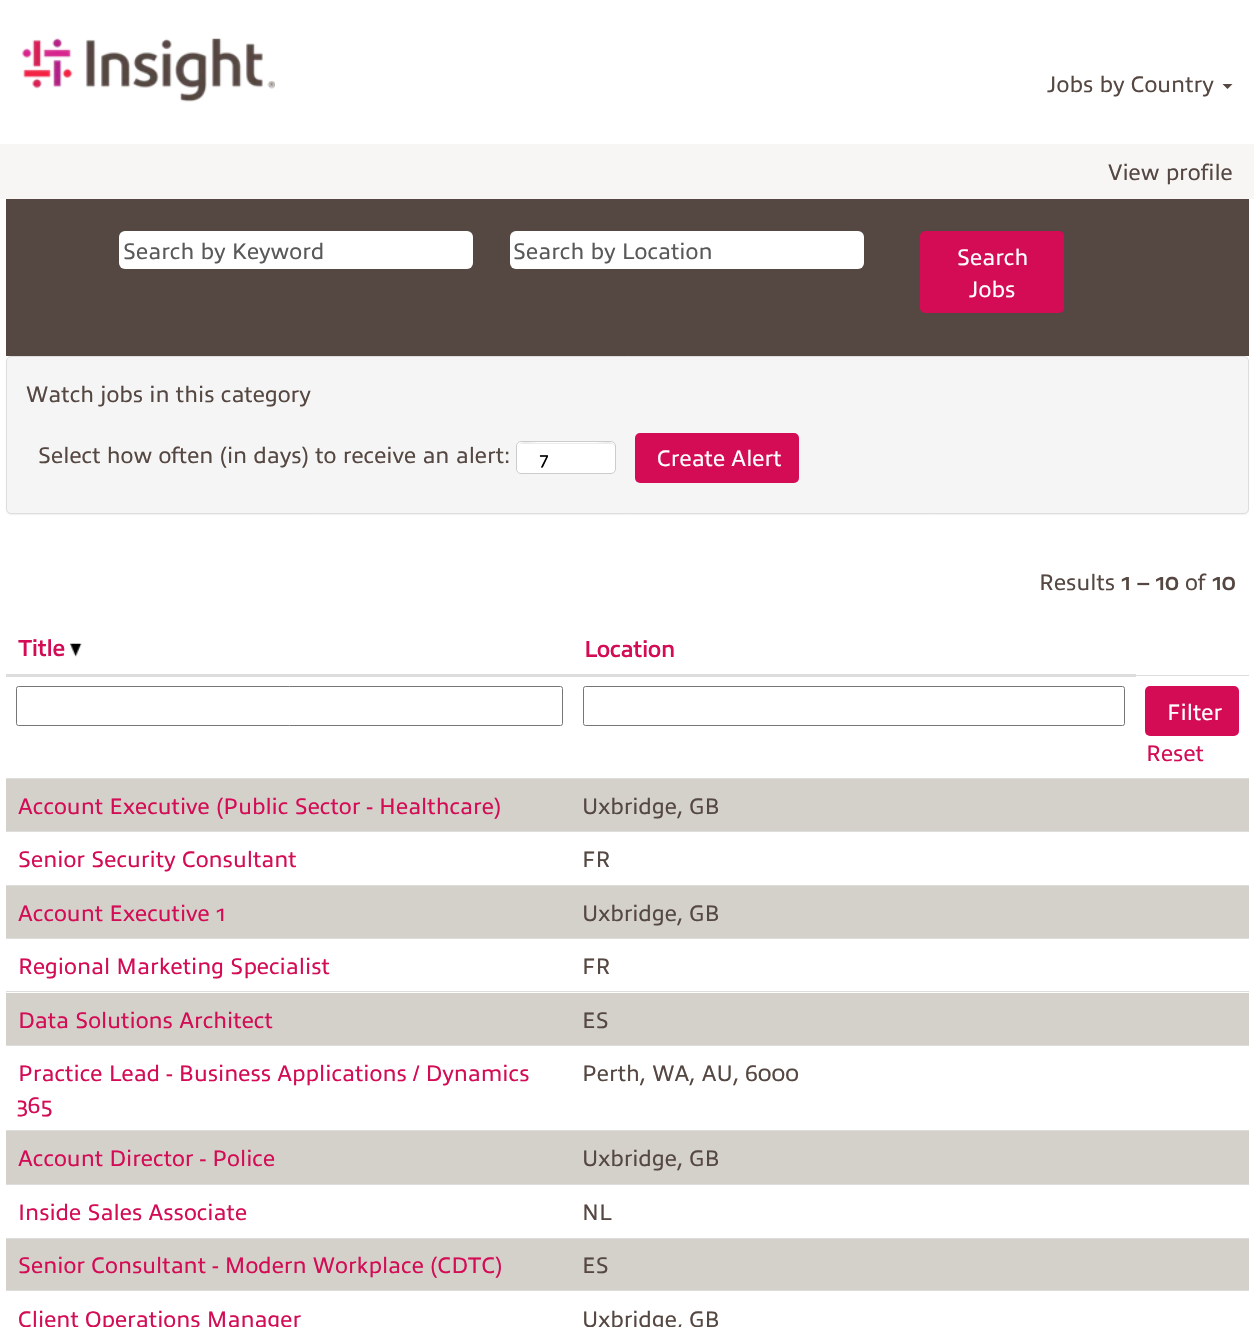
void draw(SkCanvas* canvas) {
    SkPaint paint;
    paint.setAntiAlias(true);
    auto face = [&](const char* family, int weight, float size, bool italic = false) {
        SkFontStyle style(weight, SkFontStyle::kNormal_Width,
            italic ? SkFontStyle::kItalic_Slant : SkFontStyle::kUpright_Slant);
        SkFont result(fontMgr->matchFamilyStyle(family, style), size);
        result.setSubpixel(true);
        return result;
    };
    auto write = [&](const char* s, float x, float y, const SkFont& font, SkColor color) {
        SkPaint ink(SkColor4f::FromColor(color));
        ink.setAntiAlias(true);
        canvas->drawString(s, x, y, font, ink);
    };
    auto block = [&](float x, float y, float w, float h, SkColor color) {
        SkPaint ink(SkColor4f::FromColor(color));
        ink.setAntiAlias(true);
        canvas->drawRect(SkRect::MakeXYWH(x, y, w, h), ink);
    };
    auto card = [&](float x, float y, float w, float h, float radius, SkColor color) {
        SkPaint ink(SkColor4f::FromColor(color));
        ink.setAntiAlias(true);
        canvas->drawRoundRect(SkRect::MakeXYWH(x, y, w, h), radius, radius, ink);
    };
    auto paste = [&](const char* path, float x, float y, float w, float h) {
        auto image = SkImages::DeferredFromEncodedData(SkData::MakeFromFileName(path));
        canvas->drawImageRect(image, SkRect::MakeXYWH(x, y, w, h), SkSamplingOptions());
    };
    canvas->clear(SK_ColorWHITE);
    paste("pic1.png", 22, 38, 253, 64);
    auto kFont1 = face("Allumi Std", 400, 22.5f);
    write("Jobs by Country", 1047, 92, kFont1, SkColorSetRGB(85, 71, 65));
    paint.setColor(SkColorSetRGB(85, 71, 65));
    canvas->drawPath(SkPathBuilder().moveTo(1222.5f, 84).lineTo(1232.5f, 84).lineTo(1227.5f, 89).close().detach(), paint);
    block(0, 144, 1254, 55, SkColorSetRGB(247, 246, 245));
    write("View profile", 1108, 180, kFont1, SkColorSetRGB(85, 71, 65));
    block(6, 199, 1243, 157, SkColorSetRGB(85, 71, 65));
    card(119, 231, 354, 38, 6, SK_ColorWHITE);
    write("Search by Keyword", 123, 259, kFont1, SkColorSetRGB(89, 89, 89));
    card(510, 231, 354, 38, 6, SK_ColorWHITE);
    write("Search by Location", 513, 259, kFont1, SkColorSetRGB(89, 89, 89));
    card(920, 231, 144, 82, 5, SkColorSetRGB(211, 12, 85));
    write("Search", 957, 265, kFont1, SK_ColorWHITE);
    write("Jobs", 969, 297, kFont1, SK_ColorWHITE);
    paint.setColor(SkColorSetARGB(13, 0, 0, 0));
    paint.setMaskFilter(SkMaskFilter::MakeBlur(kNormal_SkBlurStyle, 0.5f));
    canvas->drawRoundRect(SkRect::MakeXYWH(6, 358, 1243, 157), 5, 5, paint);
    paint.setMaskFilter(nullptr);
    paint.setColor(SkColorSetRGB(245, 245, 245));
    canvas->drawRoundRect(SkRect::MakeXYWH(6.5f, 356.5f, 1242, 157), 4.5f, 4.5f, paint);
    paint.setStyle(SkPaint::kStroke_Style);
    paint.setStrokeWidth(1);
    paint.setColor(SkColorSetRGB(221, 221, 221));
    canvas->drawRoundRect(SkRect::MakeXYWH(6.5f, 356.5f, 1242, 157), 4.5f, 4.5f, paint);
    write("Watch jobs in this category", 26, 402, kFont1, SkColorSetRGB(85, 71, 65));
    write("Select how often (in days) to receive an alert:", 38, 463, kFont1, SkColorSetRGB(85, 71, 65));
    card(516, 441, 100, 33, 5, SK_ColorWHITE);
    paint.setStyle(SkPaint::kFill_Style);
    paint.setColor(SkColorSetRGB(236, 236, 236));
    canvas->drawPath(SkPathBuilder().moveTo(521, 444).lineTo(611, 444).cubicTo(613, 444, 615, 445, 615, 448).cubicTo(615, 439, 601, 443, 596, 443).lineTo(537, 443).cubicTo(532, 443, 518, 439, 518, 448).cubicTo(518, 445, 519, 444, 521, 444).close().detach(), paint);
    paint.setStyle(SkPaint::kStroke_Style);
    paint.setColor(SkColorSetRGB(204, 204, 204));
    canvas->drawRoundRect(SkRect::MakeXYWH(516.5f, 441.5f, 99, 32), 4.5f, 4.5f, paint);
    auto kFont2 = face("Allumi Std", 400, 18);
    write("7", 539, 465, kFont2, SK_ColorBLACK);
    card(635, 433, 164, 50, 5, SkColorSetRGB(211, 12, 85));
    write("Create Alert", 657, 466, kFont1, SK_ColorWHITE);
    write("Results", 1039, 590, kFont1, SkColorSetRGB(85, 71, 65));
    auto kFont3 = face("Allumi Std", 700, 22.5f);
    write("1 – 10", 1121, 590, kFont3, SkColorSetRGB(85, 71, 65));
    write("of", 1185, 590, kFont1, SkColorSetRGB(85, 71, 65));
    write("10", 1212, 590, kFont3, SkColorSetRGB(85, 71, 65));
    write("Title", 18, 656, kFont3, SkColorSetRGB(211, 12, 85));
    paste("pic2.png", 70, 643, 12, 14);
    block(1134, 675, 115, 1, SkColorSetRGB(221, 221, 221));
    block(6, 674, 1130, 3, SkColorSetRGB(221, 221, 221));
    write("Location", 584, 657, kFont3, SkColorSetRGB(211, 12, 85));
    paint.setColor(SkColorSetRGB(118, 118, 118));
    canvas->drawRoundRect(SkRect::MakeXYWH(16.5f, 686.5f, 546, 39), 2, 2, paint);
    canvas->drawRoundRect(SkRect::MakeXYWH(583.5f, 686.5f, 541, 39), 2, 2, paint);
    card(1145, 686, 94, 50, 5, SkColorSetRGB(211, 12, 85));
    write("Filter", 1167, 720, kFont1, SK_ColorWHITE);
    write("Reset", 1146, 761, kFont1, SkColorSetRGB(211, 12, 85));
    block(6, 779, 1243, 52, SkColorSetRGB(212, 208, 202));
    block(6, 778, 1243, 1, SkColorSetRGB(221, 221, 221));
    write("Account Executive (Public Sector - Healthcare)", 18, 814, kFont1, SkColorSetRGB(211, 12, 85));
    write("Uxbridge, GB", 582, 814, kFont1, SkColorSetRGB(85, 71, 65));
    block(6, 831, 1243, 1, SkColorSetRGB(221, 221, 221));
    write("Senior Security Consultant", 18, 867, kFont1, SkColorSetRGB(211, 12, 85));
    write("FR", 582, 867, kFont1, SkColorSetRGB(85, 71, 65));
    block(6, 886, 1243, 52, SkColorSetRGB(212, 208, 202));
    block(6, 885, 1243, 1, SkColorSetRGB(221, 221, 221));
    write("Account Executive 1", 18, 921, kFont1, SkColorSetRGB(211, 12, 85));
    write("Uxbridge, GB", 582, 921, kFont1, SkColorSetRGB(85, 71, 65));
    block(6, 938, 1243, 1, SkColorSetRGB(221, 221, 221));
    write("Regional Marketing Specialist", 18, 974, kFont1, SkColorSetRGB(211, 12, 85));
    write("FR", 582, 974, kFont1, SkColorSetRGB(85, 71, 65));
    block(6, 993, 1243, 52, SkColorSetRGB(212, 208, 202));
    block(6, 991, 1243, 1, SkColorSetRGB(221, 221, 221));
    write("Data Solutions Architect", 18, 1028, kFont1, SkColorSetRGB(211, 12, 85));
    write("ES", 582, 1028, kFont1, SkColorSetRGB(85, 71, 65));
    block(6, 1045, 1243, 1, SkColorSetRGB(221, 221, 221));
    write("Practice Lead - Business Applications / Dynamics", 18, 1081, kFont1, SkColorSetRGB(211, 12, 85));
    write("365", 16, 1113, kFont1, SkColorSetRGB(211, 12, 85));
    write("Perth, WA, AU, 6000", 582, 1081, kFont1, SkColorSetRGB(85, 71, 65));
    block(6, 1131, 1243, 53, SkColorSetRGB(212, 208, 202));
    block(6, 1130, 1243, 1, SkColorSetRGB(221, 221, 221));
    write("Account Director - Police", 18, 1166, kFont1, SkColorSetRGB(211, 12, 85));
    write("Uxbridge, GB", 582, 1166, kFont1, SkColorSetRGB(85, 71, 65));
    block(6, 1184, 1243, 1, SkColorSetRGB(221, 221, 221));
    write("Inside Sales Associate", 18, 1220, kFont1, SkColorSetRGB(211, 12, 85));
    write("NL", 582, 1220, kFont1, SkColorSetRGB(85, 71, 65));
    block(6, 1239, 1243, 51, SkColorSetRGB(212, 208, 202));
    block(6, 1238, 1243, 1, SkColorSetRGB(221, 221, 221));
    write("Senior Consultant - Modern Workplace (CDTC)", 18, 1273, kFont1, SkColorSetRGB(211, 12, 85));
    write("ES", 582, 1273, kFont1, SkColorSetRGB(85, 71, 65));
    block(6, 1290, 1243, 1, SkColorSetRGB(221, 221, 221));
    write("Client Operations Manager", 18, 1327, kFont1, SkColorSetRGB(211, 12, 85));
    write("Uxbridge, GB", 582, 1327, kFont1, SkColorSetRGB(85, 71, 65));
}
